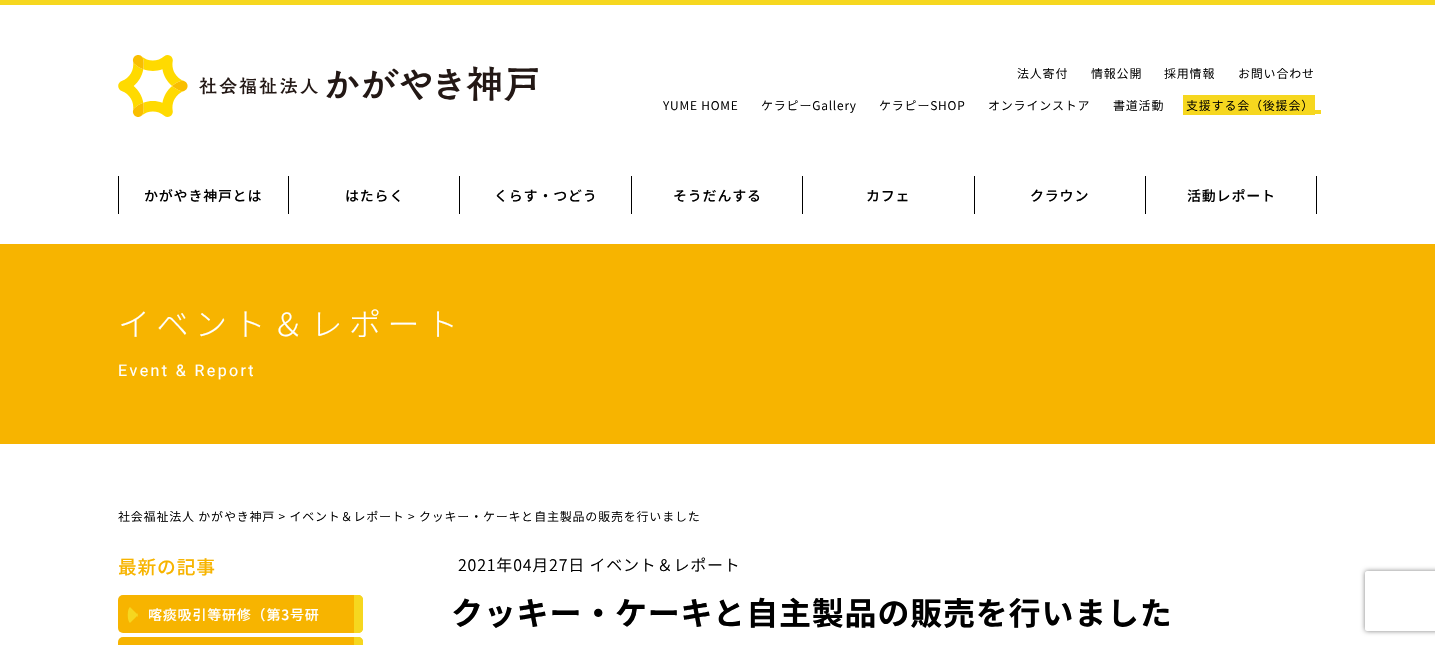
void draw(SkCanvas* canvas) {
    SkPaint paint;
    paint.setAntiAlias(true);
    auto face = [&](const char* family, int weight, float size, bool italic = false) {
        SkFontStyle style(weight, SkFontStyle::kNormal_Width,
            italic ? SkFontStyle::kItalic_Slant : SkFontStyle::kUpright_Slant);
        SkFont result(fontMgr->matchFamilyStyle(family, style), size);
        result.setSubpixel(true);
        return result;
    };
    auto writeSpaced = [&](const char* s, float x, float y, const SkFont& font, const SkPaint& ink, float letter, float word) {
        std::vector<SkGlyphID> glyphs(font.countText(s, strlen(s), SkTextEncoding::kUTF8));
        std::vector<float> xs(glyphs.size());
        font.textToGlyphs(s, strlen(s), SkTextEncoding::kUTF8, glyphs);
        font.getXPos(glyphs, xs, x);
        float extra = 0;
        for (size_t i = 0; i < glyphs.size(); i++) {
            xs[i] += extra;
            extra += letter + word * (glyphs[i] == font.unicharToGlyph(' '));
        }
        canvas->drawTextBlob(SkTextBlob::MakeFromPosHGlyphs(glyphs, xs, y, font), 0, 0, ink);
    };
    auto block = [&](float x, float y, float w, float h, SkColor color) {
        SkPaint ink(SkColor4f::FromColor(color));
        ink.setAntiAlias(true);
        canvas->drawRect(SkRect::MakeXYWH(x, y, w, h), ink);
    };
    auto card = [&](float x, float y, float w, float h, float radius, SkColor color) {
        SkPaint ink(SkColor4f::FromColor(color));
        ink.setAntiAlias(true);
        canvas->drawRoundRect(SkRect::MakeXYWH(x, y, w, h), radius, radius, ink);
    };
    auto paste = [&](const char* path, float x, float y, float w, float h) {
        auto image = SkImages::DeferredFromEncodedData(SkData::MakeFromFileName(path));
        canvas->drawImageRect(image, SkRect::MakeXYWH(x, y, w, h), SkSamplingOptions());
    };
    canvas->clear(SK_ColorWHITE);
    block(0, 0, 1435, 5, SkColorSetRGB(246, 215, 31));
    paste("pic1.png", 118, 55, 420, 62);
    auto kFont1 = face("Noto Sans JP", 300, 12);
    paint.setColor(SK_ColorBLACK);
    writeSpaced("法人寄付", 1017, 78, kFont1, paint, 0.8f, 0);
    writeSpaced("情報公開", 1091, 78, kFont1, paint, 0.8f, 0);
    writeSpaced("採用情報", 1164, 78, kFont1, paint, 0.8f, 0);
    writeSpaced("お問い合わせ", 1238, 78, kFont1, paint, 0.8f, 0);
    writeSpaced("YUME HOME", 663, 110, kFont1, paint, 0.8f, 0);
    writeSpaced("ケラピーGallery", 761, 110, kFont1, paint, 0.8f, 0);
    writeSpaced("ケラピーSHOP", 879, 110, kFont1, paint, 0.8f, 0);
    writeSpaced("オンラインストア", 988, 110, kFont1, paint, 0.8f, 0);
    writeSpaced("書道活動", 1113, 110, kFont1, paint, 0.8f, 0);
    block(1183, 95, 132, 20, SkColorSetRGB(246, 215, 31));
    writeSpaced("支援する会（後援会）", 1186, 110, kFont1, paint, 0.8f, 0);
    block(1315, 110, 6, 4, SkColorSetRGB(246, 215, 31));
    block(288, 176, 1, 38, SK_ColorBLACK);
    block(118, 176, 1, 38, SK_ColorBLACK);
    auto kFont2 = face("Noto Sans JP", 500, 14);
    writeSpaced("かがやき神戸とは", 144, 201, kFont2, paint, 0.8f, 0);
    block(459, 176, 1, 38, SK_ColorBLACK);
    writeSpaced("はたらく", 345, 201, kFont2, paint, 0.8f, 0);
    block(631, 176, 1, 38, SK_ColorBLACK);
    writeSpaced("くらす・つどう", 494, 201, kFont2, paint, 0.8f, 0);
    block(802, 176, 1, 38, SK_ColorBLACK);
    writeSpaced("そうだんする", 673, 201, kFont2, paint, 0.8f, 0);
    block(974, 176, 1, 38, SK_ColorBLACK);
    writeSpaced("カフェ", 866, 201, kFont2, paint, 0.8f, 0);
    block(1145, 176, 1, 38, SK_ColorBLACK);
    writeSpaced("クラウン", 1030, 201, kFont2, paint, 0.8f, 0);
    block(1316, 176, 1, 38, SK_ColorBLACK);
    writeSpaced("活動レポート", 1187, 201, kFont2, paint, 0.8f, 0);
    block(0, 244, 1435, 200, SkColorSetRGB(247, 180, 0));
    auto kFont3 = face("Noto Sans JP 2", 300, 32);
    paint.setColor(SK_ColorWHITE);
    writeSpaced("イベント＆レポート", 118, 336, kFont3, paint, 6.5f, 0);
    auto kFont4 = face("Roboto", 400, 16);
    writeSpaced("Event & Report", 118, 376, kFont4, paint, 2.4f, 0);
    paint.setColor(SK_ColorBLACK);
    writeSpaced("社会福祉法人 かがやき神戸 > イベント＆レポート > クッキー・ケーキと自主製品の販売を行いました", 118, 521, kFont1, paint, 0.8f, 0);
    auto kFont5 = face("Noto Sans JP", 500, 18.75f);
    paint.setColor(SkColorSetRGB(247, 180, 0));
    writeSpaced("最新の記事", 118, 574, kFont5, paint, 0.8f, 0);
    card(118, 595, 245, 38, 5, SkColorSetRGB(247, 180, 0));
    paint.setStyle(SkPaint::kStroke_Style);
    paint.setStrokeWidth(10);
    paint.setColor(SkColorSetRGB(246, 215, 31));
    canvas->drawPath(SkPathBuilder().moveTo(133.5f, 619.5f).cubicTo(132.5f, 618.5f, 132.5f, 611.5f, 133.5f, 610.5f).detach(), paint);
    paint.setStyle(SkPaint::kFill_Style);
    paint.setColor(SK_ColorWHITE);
    writeSpaced("喀痰吸引等研修（第3号研", 148, 620, kFont2, paint, 0.8f, 0);
    paint.setColor(SkColorSetRGB(246, 215, 31));
    canvas->drawPath(SkPathBuilder().moveTo(354, 595).lineTo(358, 595).cubicTo(361, 595, 363, 597, 363, 600).lineTo(363, 628).cubicTo(363, 631, 361, 633, 358, 633).lineTo(354, 633).close().detach(), paint);
    card(118, 637, 245, 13, 5, SkColorSetRGB(247, 180, 0));
    canvas->drawPath(SkPathBuilder().moveTo(354, 637).lineTo(358, 637).cubicTo(361, 637, 363, 639, 363, 642).lineTo(363, 645).cubicTo(363, 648, 361, 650, 358, 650).lineTo(354, 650).close().detach(), paint);
    auto kFont6 = face("Noto Sans JP", 300, 16);
    paint.setColor(SK_ColorBLACK);
    writeSpaced("2021年04月27日 イベント＆レポート", 458, 571, kFont6, paint, 0.8f, 0);
    auto kFont7 = face("Noto Sans JP", 700, 32);
    writeSpaced("クッキー・ケーキと自主製品の販売を行いました", 451, 625, kFont7, paint, 0.8f, 0);
    canvas->save();
    canvas->clipPath(SkPathBuilder(SkPathFillType::kEvenOdd).moveTo(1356, 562).lineTo(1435, 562).lineTo(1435, 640).lineTo(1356, 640).close().moveTo(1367, 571).lineTo(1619, 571).cubicTo(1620, 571, 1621, 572, 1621, 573).lineTo(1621, 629).cubicTo(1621, 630, 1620, 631, 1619, 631).lineTo(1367, 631).cubicTo(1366, 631, 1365, 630, 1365, 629).lineTo(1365, 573).cubicTo(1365, 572, 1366, 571, 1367, 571).close().detach(), true);
    paint.setColor(SkColorSetRGB(128, 128, 128));
    paint.setMaskFilter(SkMaskFilter::MakeBlur(kNormal_SkBlurStyle, 2.5f));
    canvas->drawRoundRect(SkRect::MakeXYWH(1365, 571, 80, 60), 2, 2, paint);
    paint.setMaskFilter(nullptr);
    canvas->restore();
}
